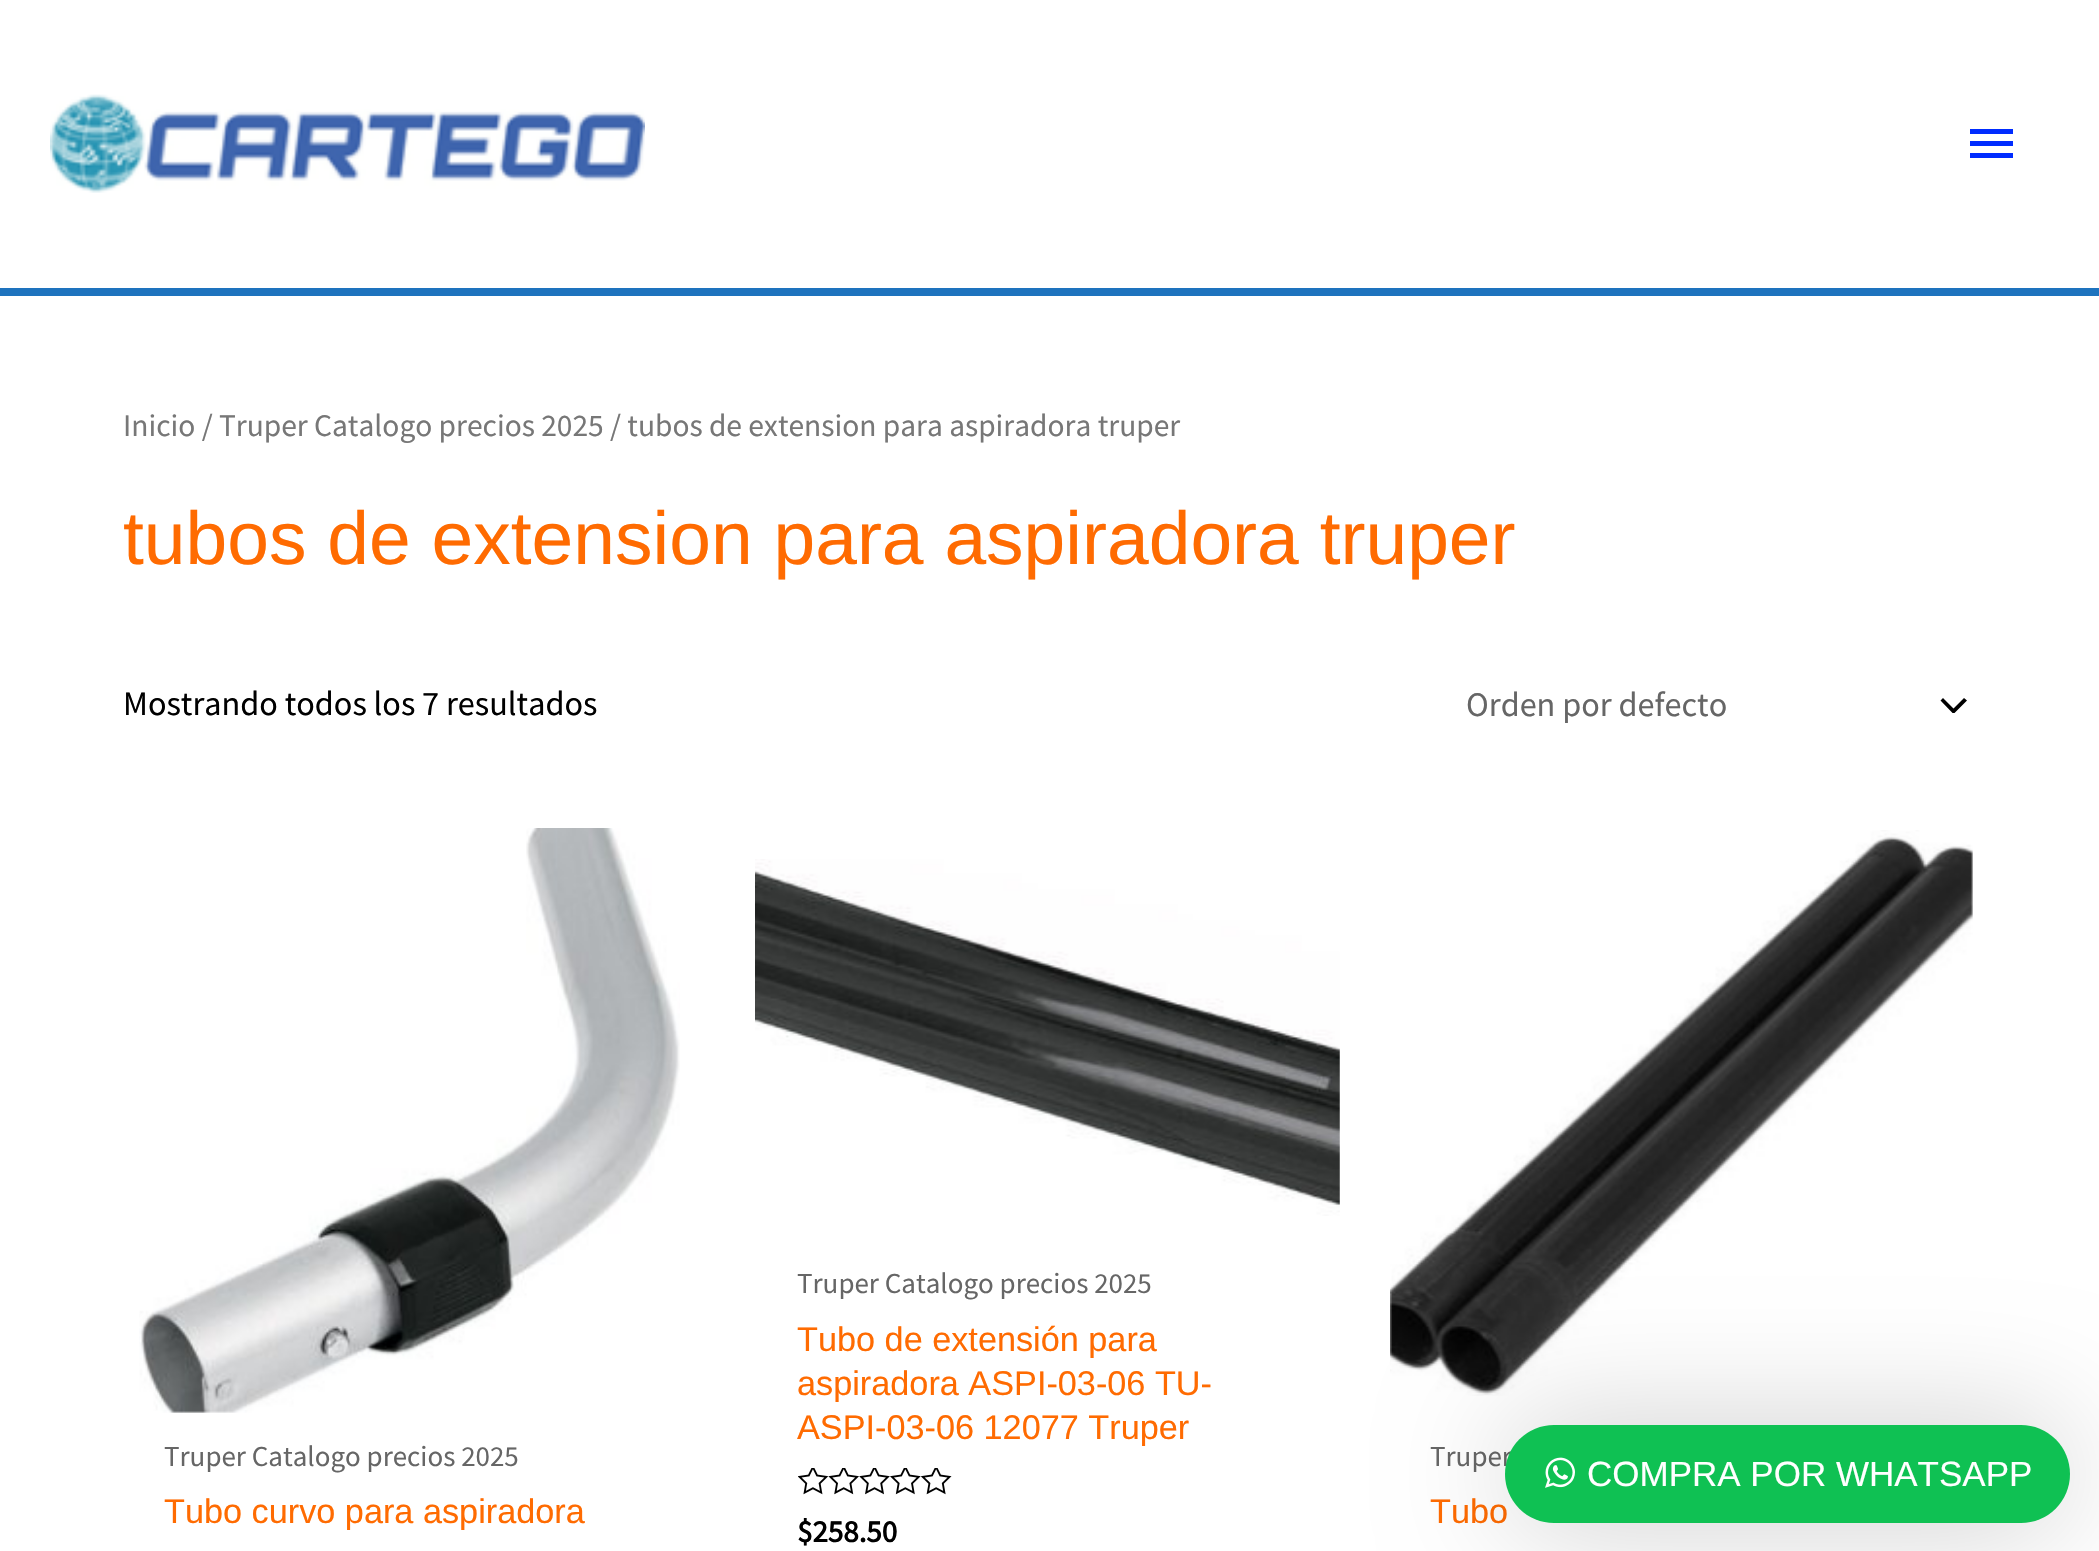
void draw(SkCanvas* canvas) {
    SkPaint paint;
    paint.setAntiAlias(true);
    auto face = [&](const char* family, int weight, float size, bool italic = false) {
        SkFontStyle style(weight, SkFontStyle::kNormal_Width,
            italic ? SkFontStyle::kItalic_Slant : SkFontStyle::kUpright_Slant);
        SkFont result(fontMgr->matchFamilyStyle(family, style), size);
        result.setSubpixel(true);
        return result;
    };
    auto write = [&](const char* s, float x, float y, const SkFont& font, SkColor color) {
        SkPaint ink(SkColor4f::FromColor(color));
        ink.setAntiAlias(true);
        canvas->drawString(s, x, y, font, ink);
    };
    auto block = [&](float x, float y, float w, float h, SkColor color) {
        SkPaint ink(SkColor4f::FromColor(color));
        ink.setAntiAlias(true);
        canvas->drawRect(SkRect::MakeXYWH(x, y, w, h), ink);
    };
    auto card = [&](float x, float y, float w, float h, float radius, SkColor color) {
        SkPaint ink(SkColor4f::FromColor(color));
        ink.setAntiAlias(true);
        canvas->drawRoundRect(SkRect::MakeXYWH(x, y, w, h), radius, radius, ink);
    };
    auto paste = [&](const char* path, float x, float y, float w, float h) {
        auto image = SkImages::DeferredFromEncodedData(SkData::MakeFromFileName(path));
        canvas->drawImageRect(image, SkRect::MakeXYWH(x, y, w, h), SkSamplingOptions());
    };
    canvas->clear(SK_ColorWHITE);
    block(0, 288, 2099, 8, SkColorSetRGB(30, 115, 190));
    paste("pic1.png", 50, 94, 595, 99);
    paint.setColor(SkColorSetRGB(0, 44, 255));
    canvas->drawPath(SkPathBuilder().moveTo(1970, 129).lineTo(2013, 129).lineTo(2013, 134).lineTo(1970, 134).close().moveTo(1970, 146).lineTo(1970, 141).lineTo(2013, 141).lineTo(2013, 146).close().moveTo(1970, 158).lineTo(1970, 153).lineTo(2013, 153).lineTo(2013, 158).close().detach(), paint);
    auto kFont1 = face("Source Sans Pro", 400, 31.45f);
    write("Inicio / Truper Catalogo precios 2025 / tubos de extension para aspiradora truper", 123, 436, kFont1, SkColorSetRGB(119, 119, 119));
    auto kFont2 = face("Liberation Sans", 400, 75);
    write("tubos de extension para aspiradora truper", 123, 564, kFont2, SkColorSetRGB(255, 107, 1));
    auto kFont3 = face("Source Sans Pro", 400, 34.25f);
    write("Mostrando todos los 7 resultados", 123, 715, kFont3, SK_ColorBLACK);
    canvas->save();
    canvas->clipRect(SkRect::MakeXYWH(1940, 698, 28, 15));
    paint.setColor(SK_ColorBLACK);
    canvas->drawPath(SkPathBuilder().moveTo(1940.5f, 700.5f).lineTo(1953.5f, 714).lineTo(1967, 700.5f).lineTo(1964, 698).lineTo(1953.5f, 708.5f).lineTo(1943, 698).close().detach(), paint);
    canvas->restore();
    write("Orden por defecto", 1466, 716, kFont3, SkColorSetRGB(102, 102, 102));
    paste("pic2.png", 139, 828, 541, 585);
    auto kFont4 = face("Source Sans Pro", 400, 29);
    write("Truper Catalogo precios 2025", 164, 1466, kFont4, SkColorSetRGB(102, 102, 102));
    auto kFont5 = face("Liberation Sans", 400, 34.25f);
    write("Tubo curvo para aspiradora", 164, 1523, kFont5, SkColorSetRGB(255, 107, 1));
    paste("pic3.png", 755, 859, 585, 357);
    write("Truper Catalogo precios 2025", 797, 1293, kFont4, SkColorSetRGB(102, 102, 102));
    write("Tubo de extensión para", 797, 1351, kFont5, SkColorSetRGB(255, 107, 1));
    write("aspiradora ASPI-03-06 TU-", 797, 1395, kFont5, SkColorSetRGB(255, 107, 1));
    write("ASPI-03-06 12077 Truper", 797, 1439, kFont5, SkColorSetRGB(255, 107, 1));
    paste("pic4.png", 798, 1468, 154, 27);
    auto kFont6 = face("Source Sans Pro", 700, 31);
    write("$258.50", 797, 1542, kFont6, SK_ColorBLACK);
    paste("pic5.png", 1390, 830, 583, 566);
    write("Truper", 1430, 1466, kFont4, SkColorSetRGB(102, 102, 102));
    write("Tubo", 1430, 1523, kFont5, SkColorSetRGB(255, 107, 1));
    paint.setColor(SkColorSetARGB(51, 0, 0, 0));
    paint.setMaskFilter(SkMaskFilter::MakeBlur(kNormal_SkBlurStyle, 62.5f));
    canvas->drawRoundRect(SkRect::MakeXYWH(1505, 1425, 565, 98), 49, 49, paint);
    paint.setMaskFilter(nullptr);
    card(1505, 1425, 565, 98, 49, SkColorSetRGB(15, 193, 83));
    paste("pic6.png", 1545, 1457, 30, 31);
    auto kFont7 = face("Liberation Sans", 400, 35);
    write("COMPRA POR WHATSAPP", 1587, 1486, kFont7, SK_ColorWHITE);
}
